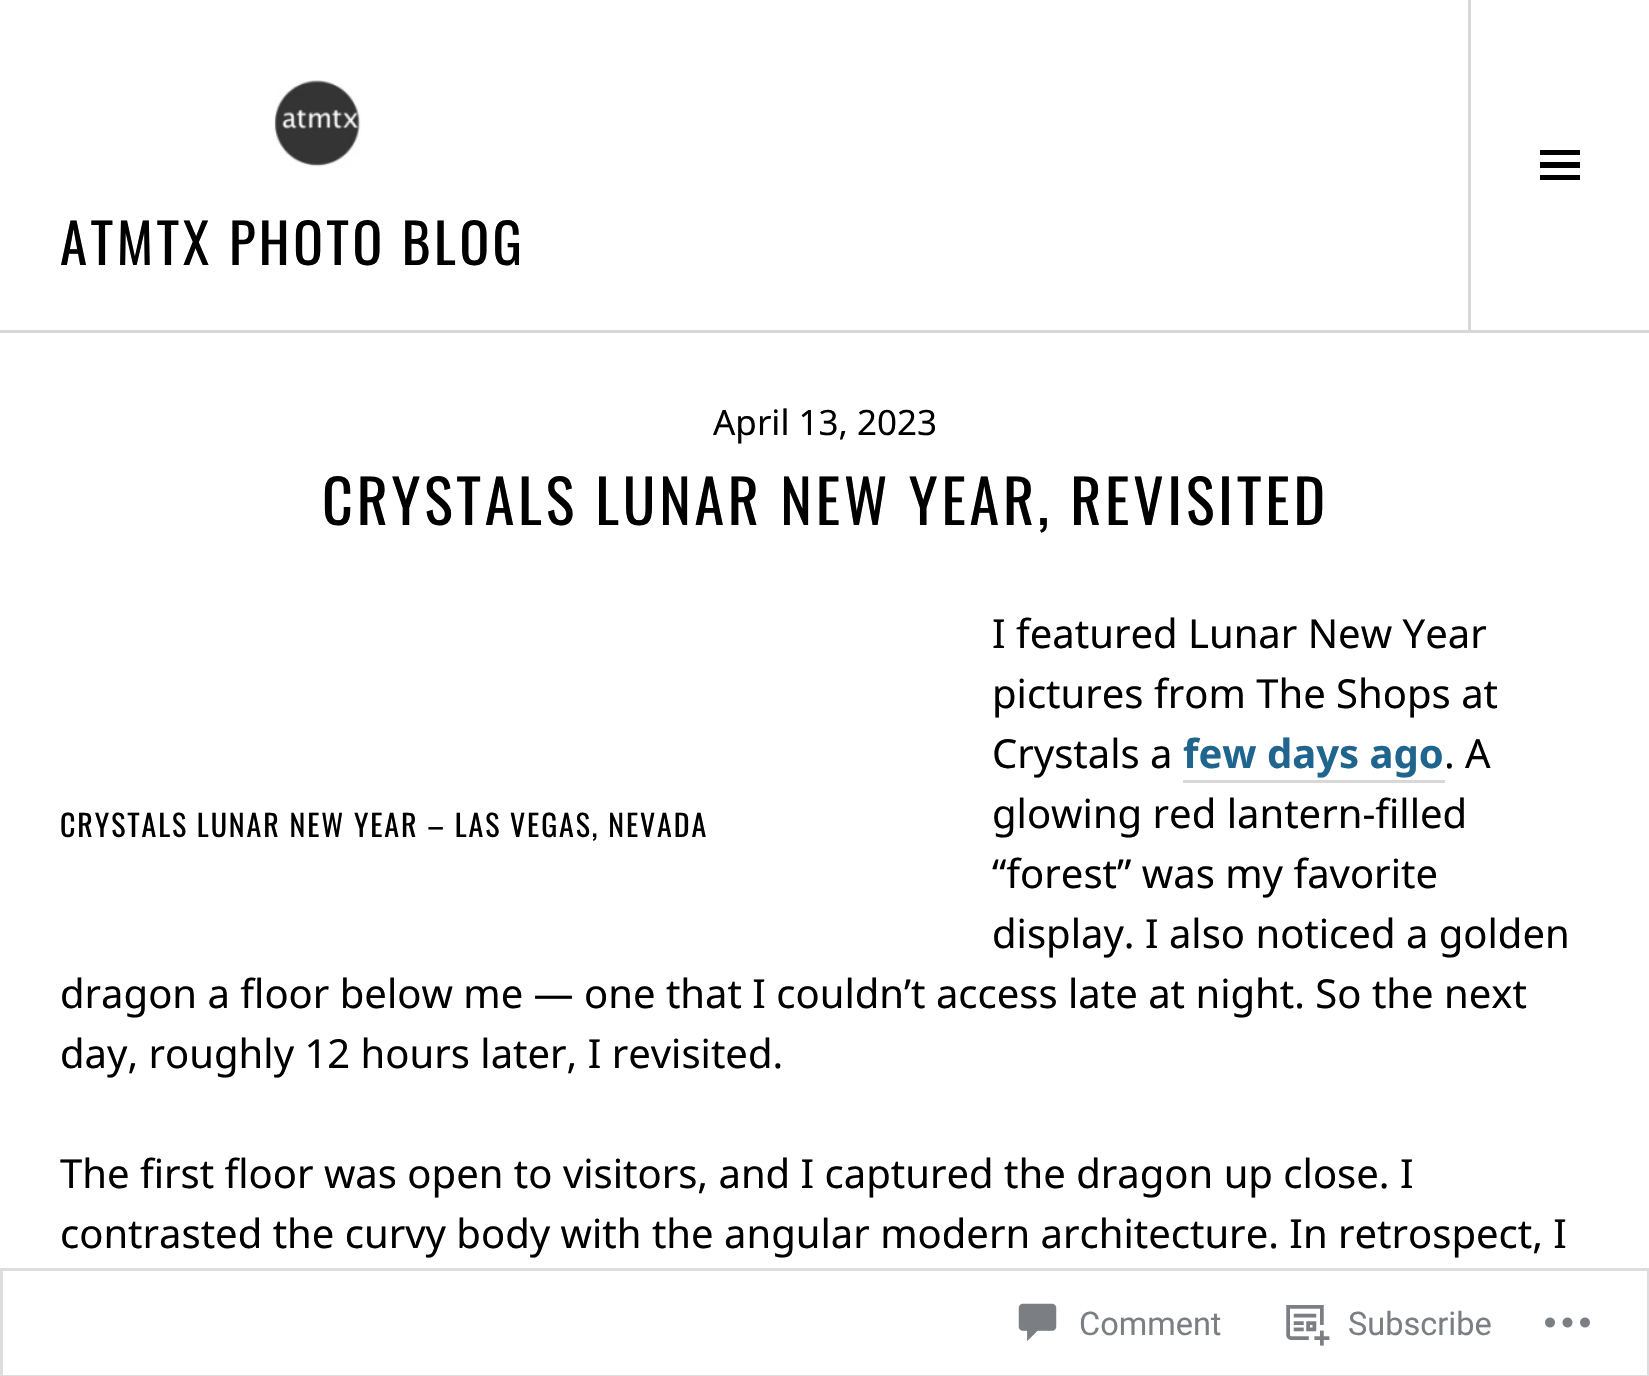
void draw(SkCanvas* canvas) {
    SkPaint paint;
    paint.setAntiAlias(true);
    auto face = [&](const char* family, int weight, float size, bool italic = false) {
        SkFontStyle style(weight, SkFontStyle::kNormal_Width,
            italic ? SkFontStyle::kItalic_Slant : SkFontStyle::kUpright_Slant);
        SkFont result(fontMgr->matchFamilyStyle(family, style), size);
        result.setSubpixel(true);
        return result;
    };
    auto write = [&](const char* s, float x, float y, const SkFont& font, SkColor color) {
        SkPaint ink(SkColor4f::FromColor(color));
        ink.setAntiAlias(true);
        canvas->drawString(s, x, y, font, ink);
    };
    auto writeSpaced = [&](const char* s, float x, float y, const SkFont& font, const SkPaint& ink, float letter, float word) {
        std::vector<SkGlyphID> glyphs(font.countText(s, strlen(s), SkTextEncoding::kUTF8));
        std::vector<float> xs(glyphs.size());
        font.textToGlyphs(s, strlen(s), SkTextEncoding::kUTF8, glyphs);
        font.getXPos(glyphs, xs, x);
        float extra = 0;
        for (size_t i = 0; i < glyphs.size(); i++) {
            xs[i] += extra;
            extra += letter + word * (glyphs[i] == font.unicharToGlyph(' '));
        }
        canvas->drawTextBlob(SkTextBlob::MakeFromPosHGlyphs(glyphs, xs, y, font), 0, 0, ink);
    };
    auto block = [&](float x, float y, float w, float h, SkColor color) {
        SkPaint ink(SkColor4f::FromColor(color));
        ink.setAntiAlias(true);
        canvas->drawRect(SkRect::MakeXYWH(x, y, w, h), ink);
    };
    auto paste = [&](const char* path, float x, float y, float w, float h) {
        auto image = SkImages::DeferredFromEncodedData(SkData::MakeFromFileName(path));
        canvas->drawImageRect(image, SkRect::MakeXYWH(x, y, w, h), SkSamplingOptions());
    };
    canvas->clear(SK_ColorWHITE);
    block(0, 330, 1649, 3, SkColorSetRGB(216, 216, 216));
    paste("pic1.png", 274, 80, 87, 87);
    auto kFont1 = face("Oswald", 400, 55);
    paint.setColor(SK_ColorBLACK);
    writeSpaced("ATMTX PHOTO BLOG", 60, 265, kFont1, paint, 3.5f, 0);
    block(1468, 0, 3, 330, SkColorSetRGB(216, 216, 216));
    canvas->drawPath(SkPathBuilder().moveTo(1540, 180).lineTo(1540, 175).lineTo(1580, 175).lineTo(1580, 180).close().moveTo(1540, 150).lineTo(1580, 150).lineTo(1580, 155).lineTo(1540, 155).close().moveTo(1540, 168).lineTo(1540, 162).lineTo(1580, 162).lineTo(1580, 168).close().detach(), paint);
    auto kFont2 = face("Noto Sans", 400, 35);
    write("April 13, 2023", 713, 435, kFont2, SK_ColorBLACK);
    auto kFont3 = face("Oswald", 400, 60);
    writeSpaced("CRYSTALS LUNAR NEW YEAR, REVISITED", 322, 525, kFont3, paint, 3.75f, 0);
    auto kFont4 = face("Noto Sans", 400, 40);
    write("I featured Lunar New Year", 992, 648, kFont4, SK_ColorBLACK);
    write("pictures from The Shops at", 992, 708, kFont4, SK_ColorBLACK);
    write("Crystals a", 992, 768, kFont4, SK_ColorBLACK);
    auto kFont5 = face("Noto Sans", 700, 40);
    write("few days ago", 1183, 768, kFont5, SkColorSetRGB(32, 101, 141));
    block(1183, 780, 262, 3, SkColorSetRGB(216, 216, 216));
    write(". A", 1444, 768, kFont4, SK_ColorBLACK);
    write("glowing red lantern-filled", 992, 828, kFont4, SK_ColorBLACK);
    write("“forest” was my favorite", 992, 888, kFont4, SK_ColorBLACK);
    write("display. I also noticed a golden", 992, 948, kFont4, SK_ColorBLACK);
    write("dragon a floor below me — one that I couldn’t access late at night. So the next", 60, 1008, kFont4, SK_ColorBLACK);
    write("day, roughly 12 hours later, I revisited.", 60, 1068, kFont4, SK_ColorBLACK);
    auto kFont6 = face("Oswald", 400, 30);
    writeSpaced("CRYSTALS LUNAR NEW YEAR – LAS VEGAS, NEVADA", 60, 837, kFont6, paint, 1.9f, 0);
    write("The first floor was open to visitors, and I captured the dragon up close. I", 60, 1188, kFont4, SK_ColorBLACK);
    write("contrasted the curvy body with the angular modern architecture. In retrospect, I", 60, 1248, kFont4, SK_ColorBLACK);
    paint.setStyle(SkPaint::kStroke_Style);
    paint.setStrokeWidth(3);
    paint.setColor(SkColorSetARGB(250, 220, 220, 222));
    canvas->drawRect(SkRect::MakeXYWH(1.5f, 1269.5f, 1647, 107), paint);
    paste("pic2.png", 1018, 1303, 39, 39);
    auto kFont7 = face("Roboto", 400, 32.5f);
    write("Comment", 1079, 1335, kFont7, SkColorSetRGB(123, 127, 132));
    paste("pic3.png", 1286, 1305, 44, 41);
    write("Subscribe", 1348, 1335, kFont7, SkColorSetRGB(123, 127, 132));
    paste("pic4.png", 1545, 1317, 45, 11);
}
